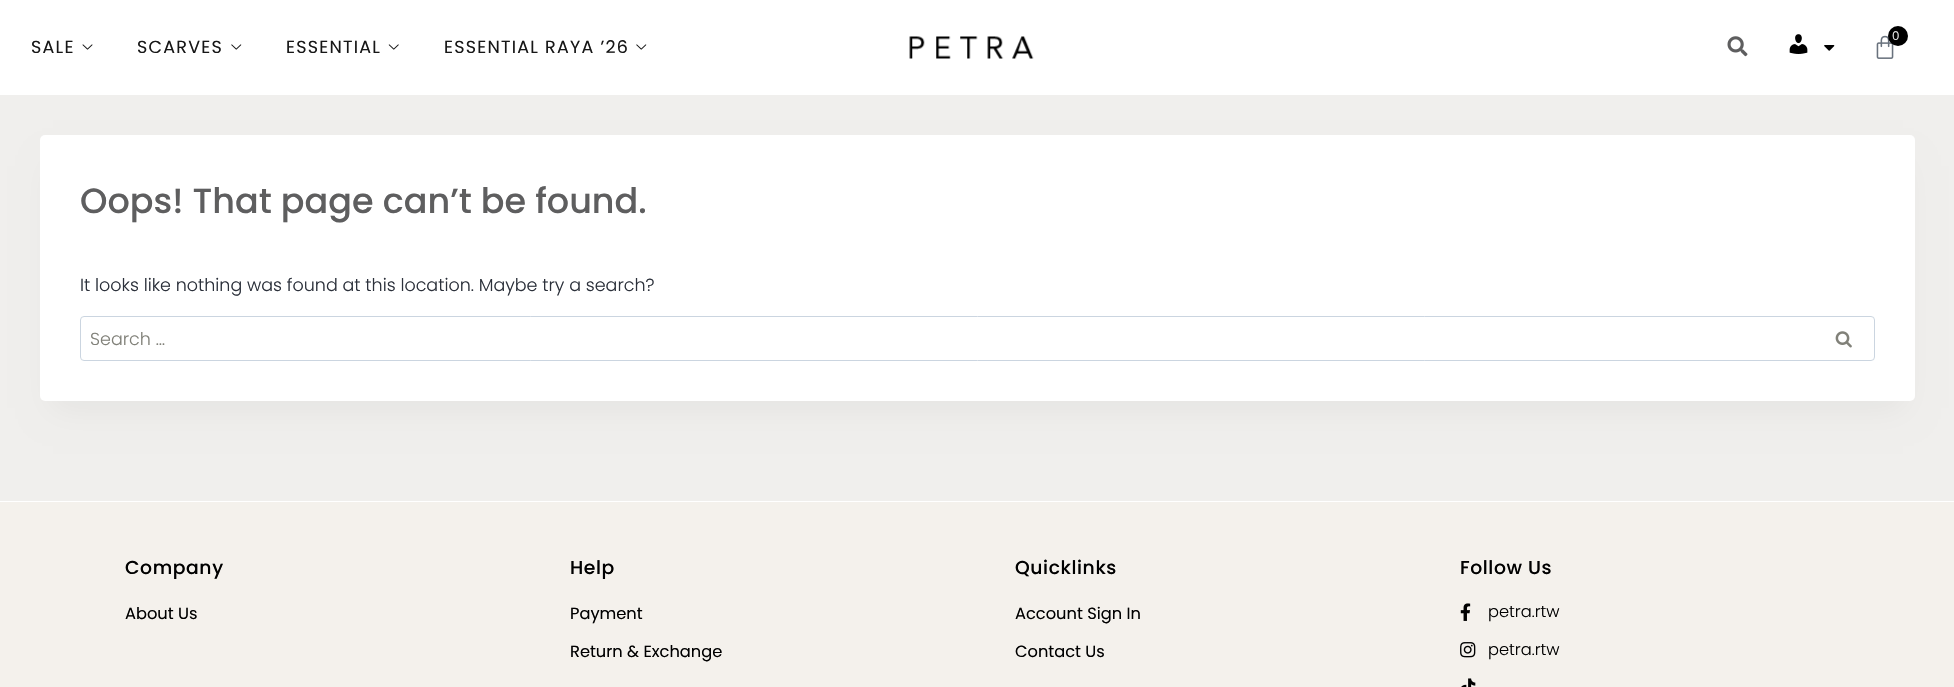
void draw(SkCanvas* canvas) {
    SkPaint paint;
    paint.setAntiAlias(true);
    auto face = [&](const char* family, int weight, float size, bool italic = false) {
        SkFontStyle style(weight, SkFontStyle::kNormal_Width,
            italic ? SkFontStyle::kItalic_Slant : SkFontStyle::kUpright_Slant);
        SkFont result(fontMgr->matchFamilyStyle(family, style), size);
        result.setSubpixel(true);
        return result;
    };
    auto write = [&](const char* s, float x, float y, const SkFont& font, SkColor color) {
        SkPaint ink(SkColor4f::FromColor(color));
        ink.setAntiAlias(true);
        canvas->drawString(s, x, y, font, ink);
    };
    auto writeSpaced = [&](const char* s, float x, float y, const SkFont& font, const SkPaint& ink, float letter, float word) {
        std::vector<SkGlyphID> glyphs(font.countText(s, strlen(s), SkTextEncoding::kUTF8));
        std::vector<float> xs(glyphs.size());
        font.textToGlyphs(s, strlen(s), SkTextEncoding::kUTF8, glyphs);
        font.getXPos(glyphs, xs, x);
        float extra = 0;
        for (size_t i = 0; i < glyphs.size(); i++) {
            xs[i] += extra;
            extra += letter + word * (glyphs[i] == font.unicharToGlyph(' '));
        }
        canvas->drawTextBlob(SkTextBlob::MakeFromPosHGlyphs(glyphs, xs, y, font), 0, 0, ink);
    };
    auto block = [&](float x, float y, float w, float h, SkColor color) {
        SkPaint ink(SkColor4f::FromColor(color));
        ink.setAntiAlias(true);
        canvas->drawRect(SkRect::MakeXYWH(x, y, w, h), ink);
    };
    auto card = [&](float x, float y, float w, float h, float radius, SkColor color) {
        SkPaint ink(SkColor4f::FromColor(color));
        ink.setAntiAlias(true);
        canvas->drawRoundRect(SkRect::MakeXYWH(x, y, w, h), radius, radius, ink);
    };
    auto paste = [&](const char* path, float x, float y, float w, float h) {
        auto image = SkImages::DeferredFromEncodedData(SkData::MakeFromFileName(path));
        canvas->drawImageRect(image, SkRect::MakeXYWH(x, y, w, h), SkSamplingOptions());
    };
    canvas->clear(SkColorSetRGB(240, 239, 237));
    block(0, 0, 1954, 95, SK_ColorWHITE);
    paste("pic1.png", 1727, 36, 21, 21);
    paste("pic2.png", 1789, 34, 19, 20);
    paste("pic3.png", 1824, 45, 11, 6);
    paste("pic4.png", 1876, 35, 18, 24);
    paint.setColor(SK_ColorBLACK);
    canvas->drawCircle(1898, 36, 10, paint);
    auto kFont1 = face("Poppins", 300, 12);
    paint.setColor(SK_ColorWHITE);
    writeSpaced("0", 1892, 40, kFont1, paint, 1.25f, 0);
    auto kFont2 = face("Poppins", 400, 17.5f);
    paint.setColor(SkColorSetRGB(23, 23, 23));
    writeSpaced("SALE", 31, 53, kFont2, paint, 1.25f, 0);
    paste("pic5.png", 82, 44, 11, 6);
    writeSpaced("SCARVES", 137, 53, kFont2, paint, 1.25f, 0);
    paste("pic6.png", 231, 44, 11, 6);
    writeSpaced("ESSENTIAL", 286, 53, kFont2, paint, 1.25f, 0);
    paste("pic7.png", 388, 44, 11, 6);
    writeSpaced("ESSENTIAL RAYA ’26", 444, 53, kFont2, paint, 1.25f, 0);
    paste("pic6.png", 636, 44, 11, 6);
    paste("pic8.png", 909, 36, 125, 23);
    paint.setColor(SkColorSetARGB(13, 0, 0, 0));
    paint.setMaskFilter(SkMaskFilter::MakeBlur(kNormal_SkBlurStyle, 15.5f));
    canvas->drawRect(SkRect::MakeXYWH(53, 166, 1850, 242), paint);
    paint.setMaskFilter(nullptr);
    card(40, 135, 1875, 266, 5, SK_ColorWHITE);
    auto kFont3 = face("Poppins", 500, 35);
    write("Oops! That page can’t be found.", 80, 213, kFont3, SkColorSetRGB(94, 94, 95));
    auto kFont4 = face("Poppins", 300, 17.5f);
    write("It looks like nothing was found at this location. Maybe try a search?", 80, 291, kFont4, SkColorSetRGB(44, 49, 59));
    paint.setStyle(SkPaint::kStroke_Style);
    paint.setStrokeWidth(1);
    paint.setColor(SkColorSetRGB(203, 213, 224));
    canvas->drawRoundRect(SkRect::MakeXYWH(80.5f, 316.5f, 1794, 44), 3.5f, 3.5f, paint);
    write("Search …", 90, 345, kFont4, SkColorSetRGB(129, 129, 121));
    paste("pic9.png", 1835, 331, 17, 17);
    block(0, 502, 1954, 185, SkColorSetRGB(244, 241, 236));
    block(0, 501, 1954, 1, SK_ColorWHITE);
    auto kFont5 = face("Poppins", 500, 18.75f);
    paint.setStyle(SkPaint::kFill_Style);
    paint.setColor(SK_ColorBLACK);
    writeSpaced("Company", 125, 574, kFont5, paint, 0.6f, 0);
    auto kFont6 = face("Poppins", 400, 16.25f);
    write("About Us", 125, 619, kFont6, SK_ColorBLACK);
    writeSpaced("Help", 570, 574, kFont5, paint, 0.6f, 0);
    write("Payment", 570, 619, kFont6, SK_ColorBLACK);
    write("Return & Exchange", 570, 657, kFont6, SK_ColorBLACK);
    writeSpaced("Quicklinks", 1015, 574, kFont5, paint, 0.6f, 0);
    write("Account Sign In", 1015, 619, kFont6, SK_ColorBLACK);
    write("Contact Us", 1015, 657, kFont6, SK_ColorBLACK);
    writeSpaced("Follow Us", 1460, 574, kFont5, paint, 0.6f, 0);
    paste("pic10.png", 1460, 603, 11, 18);
    auto kFont7 = face("Poppins", 300, 16.25f);
    write("petra.rtw", 1488, 617, kFont7, SK_ColorBLACK);
    paste("pic11.png", 1460, 642, 16, 16);
    write("petra.rtw", 1488, 655, kFont7, SK_ColorBLACK);
    paste("pic12.png", 1461, 678, 15, 9);
}
